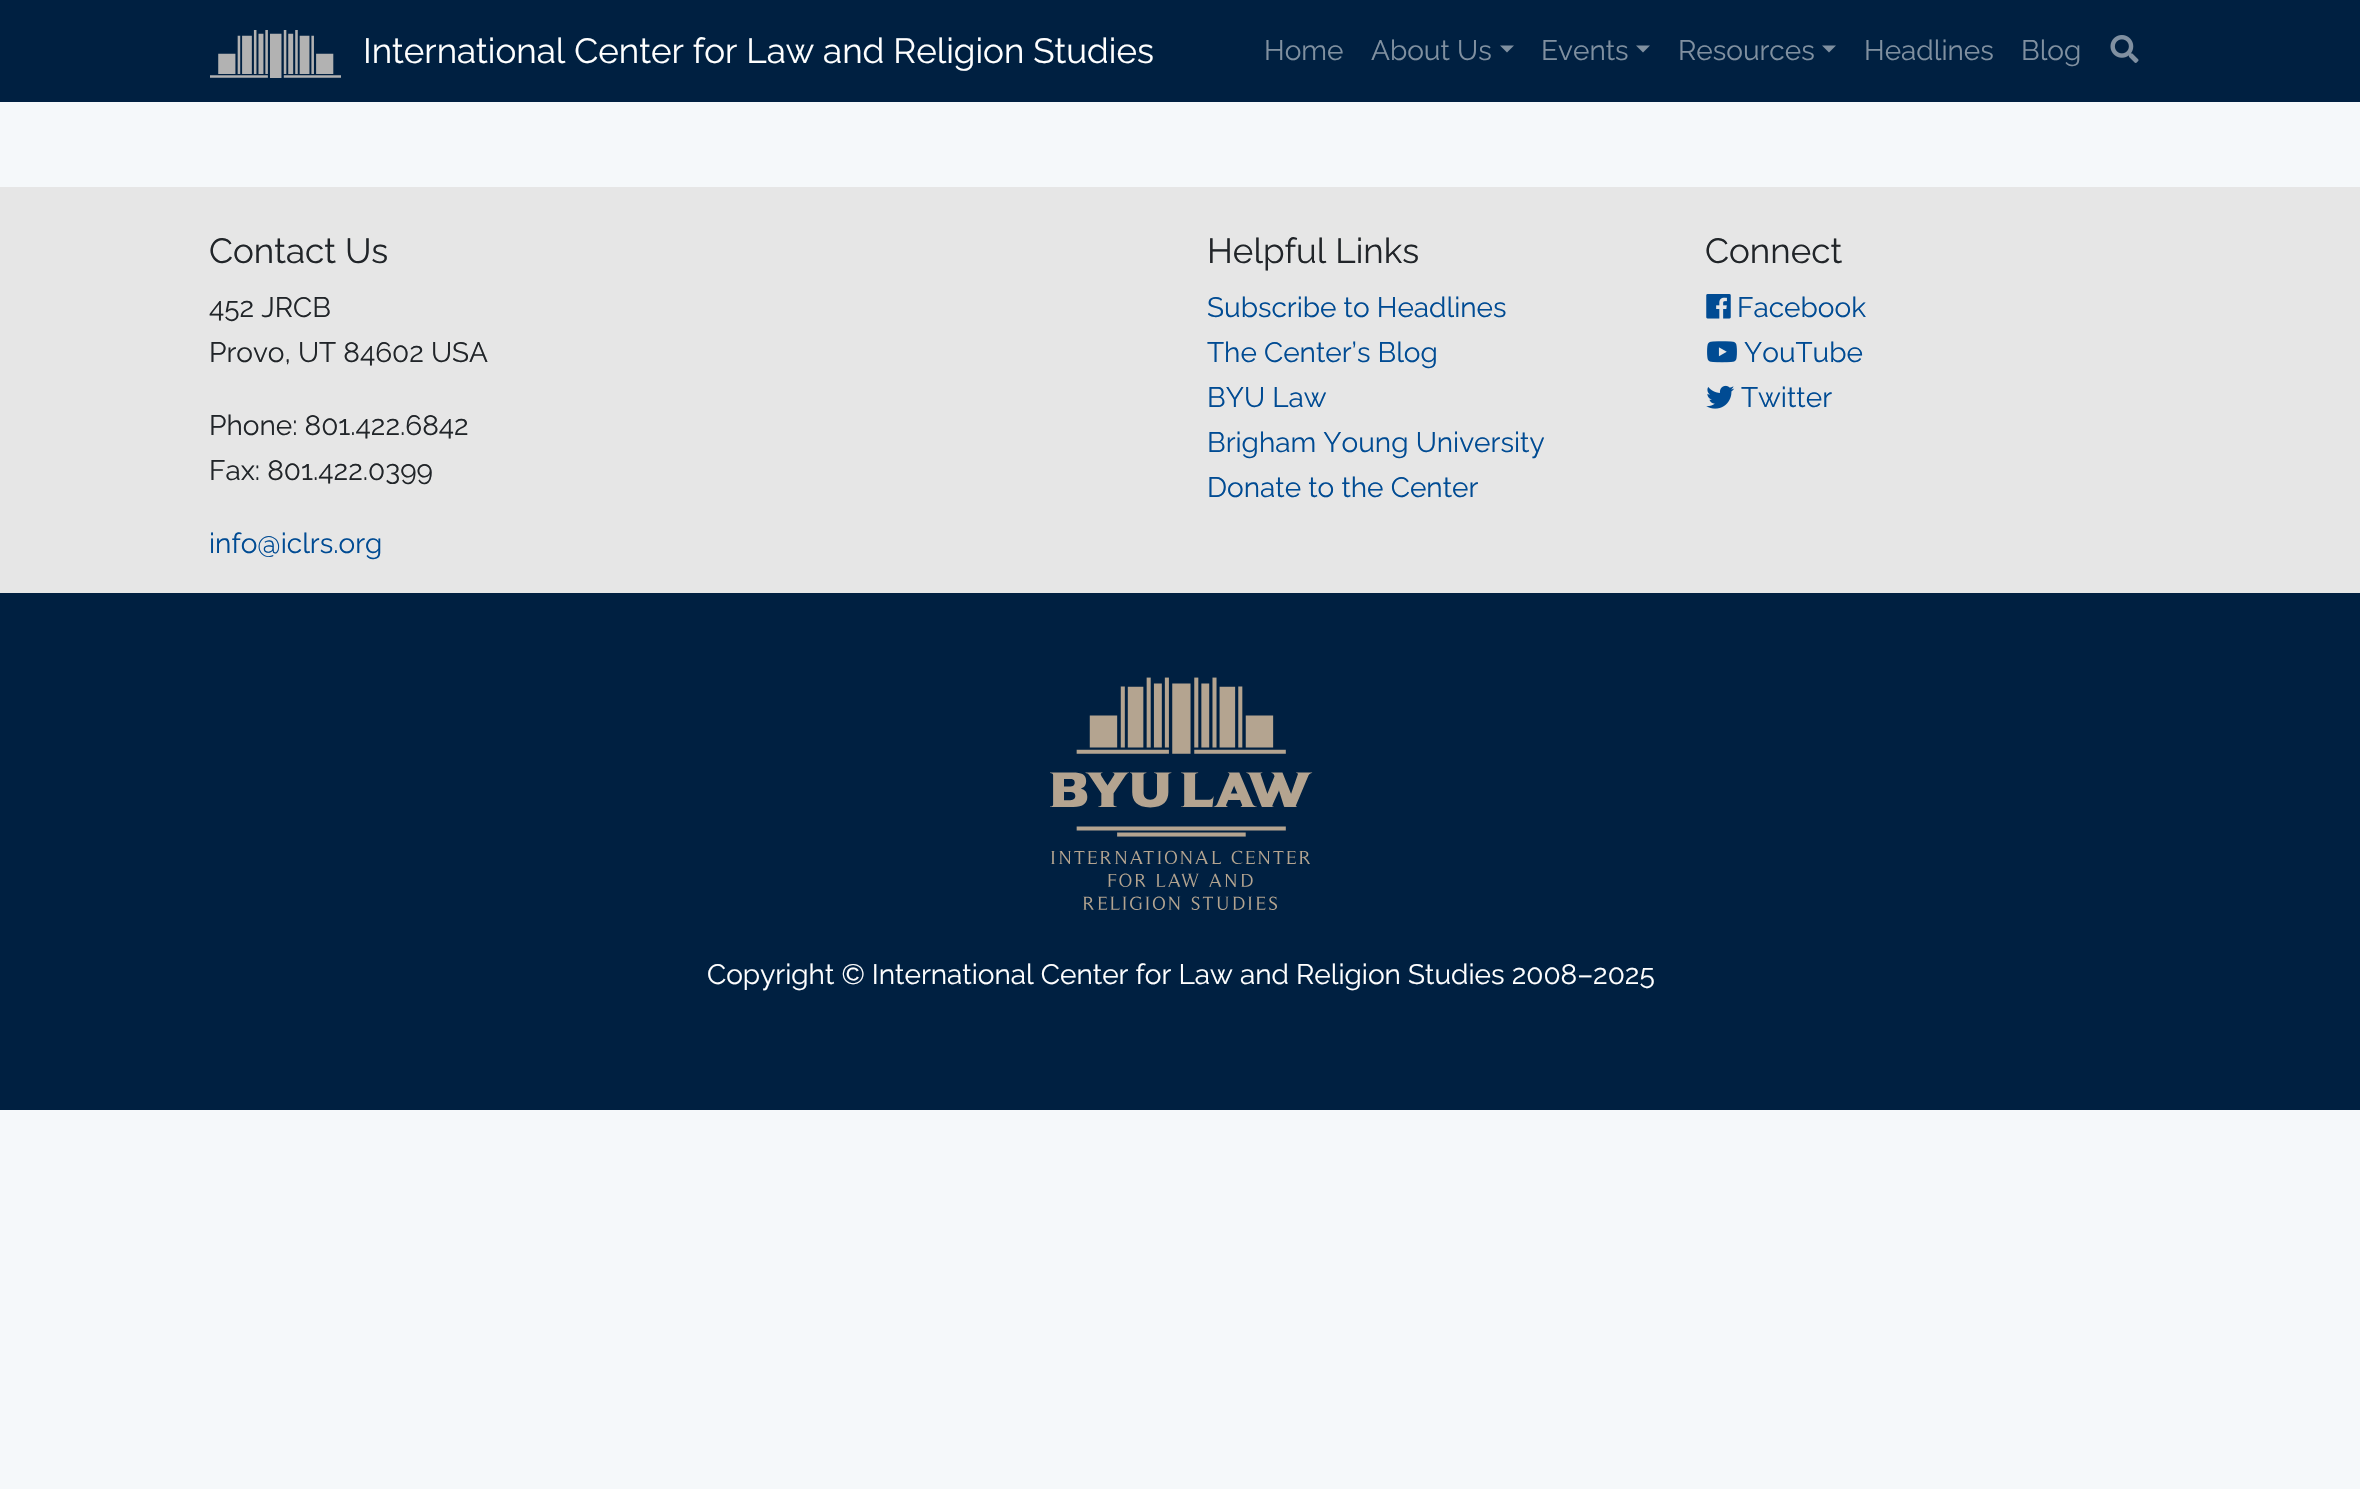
void draw(SkCanvas* canvas) {
    SkPaint paint;
    paint.setAntiAlias(true);
    auto face = [&](const char* family, int weight, float size, bool italic = false) {
        SkFontStyle style(weight, SkFontStyle::kNormal_Width,
            italic ? SkFontStyle::kItalic_Slant : SkFontStyle::kUpright_Slant);
        SkFont result(fontMgr->matchFamilyStyle(family, style), size);
        result.setSubpixel(true);
        return result;
    };
    auto write = [&](const char* s, float x, float y, const SkFont& font, SkColor color) {
        SkPaint ink(SkColor4f::FromColor(color));
        ink.setAntiAlias(true);
        canvas->drawString(s, x, y, font, ink);
    };
    auto block = [&](float x, float y, float w, float h, SkColor color) {
        SkPaint ink(SkColor4f::FromColor(color));
        ink.setAntiAlias(true);
        canvas->drawRect(SkRect::MakeXYWH(x, y, w, h), ink);
    };
    auto paste = [&](const char* path, float x, float y, float w, float h) {
        auto image = SkImages::DeferredFromEncodedData(SkData::MakeFromFileName(path));
        canvas->drawImageRect(image, SkRect::MakeXYWH(x, y, w, h), SkSamplingOptions());
    };
    canvas->clear(SkColorSetRGB(245, 248, 250));
    block(0, 0, 2360, 102, SkColorSetRGB(0, 32, 65));
    paste("pic1.png", 210, 30, 131, 48);
    auto kFont1 = face("Raleway", 400, 35);
    write("International Center for Law and Religion Studies", 363, 63, kFont1, SK_ColorWHITE);
    auto kFont2 = face("Raleway", 400, 28);
    write("Home", 1264, 60, kFont2, SkColorSetRGB(128, 144, 160));
    write("About Us", 1371, 60, kFont2, SkColorSetRGB(128, 144, 160));
    paint.setColor(SkColorSetRGB(128, 144, 160));
    canvas->drawPath(SkPathBuilder().moveTo(1500, 45.5f).lineTo(1514, 45.5f).lineTo(1507, 52.5f).close().detach(), paint);
    write("Events", 1541, 60, kFont2, SkColorSetRGB(128, 144, 160));
    canvas->drawPath(SkPathBuilder().moveTo(1636, 45.5f).lineTo(1650, 45.5f).lineTo(1643, 52.5f).close().detach(), paint);
    write("Resources", 1678, 60, kFont2, SkColorSetRGB(128, 144, 160));
    canvas->drawPath(SkPathBuilder().moveTo(1822, 45.5f).lineTo(1836, 45.5f).lineTo(1829, 52.5f).close().detach(), paint);
    write("Headlines", 1864, 60, kFont2, SkColorSetRGB(128, 144, 160));
    write("Blog", 2021, 60, kFont2, SkColorSetRGB(128, 144, 160));
    paste("pic2.png", 2110, 35, 29, 28);
    block(0, 187, 2360, 406, SkColorSetRGB(230, 230, 230));
    write("Contact Us", 209, 263, kFont1, SkColorSetRGB(33, 37, 41));
    write("452 JRCB", 209, 317, kFont2, SkColorSetRGB(33, 37, 41));
    write("Provo, UT 84602 USA", 209, 362, kFont2, SkColorSetRGB(33, 37, 41));
    write("Phone: 801.422.6842", 209, 435, kFont2, SkColorSetRGB(33, 37, 41));
    write("Fax: 801.422.0399", 209, 480, kFont2, SkColorSetRGB(33, 37, 41));
    write("info@iclrs.org", 209, 553, kFont2, SkColorSetRGB(0, 75, 147));
    write("Helpful Links", 1207, 263, kFont1, SkColorSetRGB(33, 37, 41));
    write("Subscribe to Headlines", 1207, 317, kFont2, SkColorSetRGB(0, 75, 147));
    write("The Center’s Blog", 1207, 362, kFont2, SkColorSetRGB(0, 75, 147));
    write("BYU Law", 1207, 407, kFont2, SkColorSetRGB(0, 75, 147));
    write("Brigham Young University", 1207, 452, kFont2, SkColorSetRGB(0, 75, 147));
    write("Donate to the Center", 1207, 497, kFont2, SkColorSetRGB(0, 75, 147));
    write("Connect", 1705, 263, kFont1, SkColorSetRGB(33, 37, 41));
    paste("pic3.png", 1706, 294, 25, 25);
    write("Facebook", 1737, 317, kFont2, SkColorSetRGB(0, 75, 147));
    paste("pic4.png", 1707, 341, 30, 22);
    write("YouTube", 1744, 362, kFont2, SkColorSetRGB(0, 75, 147));
    paste("pic5.png", 1706, 385, 29, 24);
    write("Twitter", 1741, 407, kFont2, SkColorSetRGB(0, 75, 147));
    block(0, 593, 2360, 517, SkColorSetRGB(0, 32, 65));
    paste("pic6.png", 1050, 677, 263, 233);
    write("Copyright © International Center for Law and Religion Studies 2008–2025", 707, 984, kFont2, SK_ColorWHITE);
}
